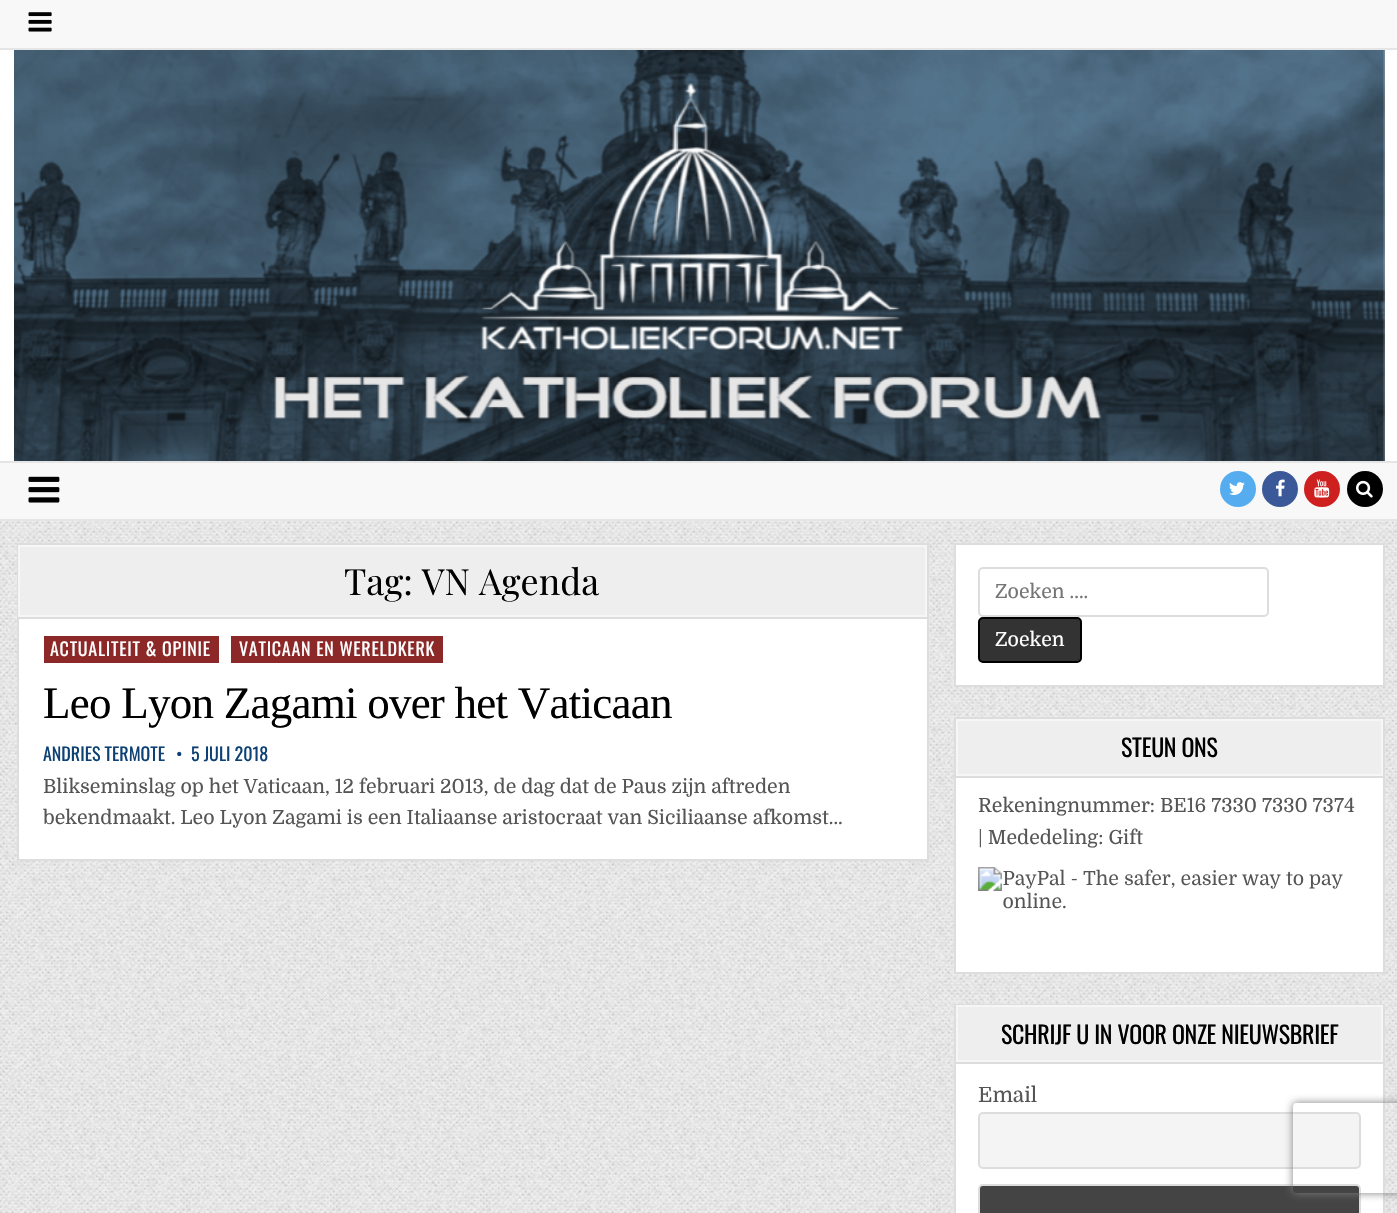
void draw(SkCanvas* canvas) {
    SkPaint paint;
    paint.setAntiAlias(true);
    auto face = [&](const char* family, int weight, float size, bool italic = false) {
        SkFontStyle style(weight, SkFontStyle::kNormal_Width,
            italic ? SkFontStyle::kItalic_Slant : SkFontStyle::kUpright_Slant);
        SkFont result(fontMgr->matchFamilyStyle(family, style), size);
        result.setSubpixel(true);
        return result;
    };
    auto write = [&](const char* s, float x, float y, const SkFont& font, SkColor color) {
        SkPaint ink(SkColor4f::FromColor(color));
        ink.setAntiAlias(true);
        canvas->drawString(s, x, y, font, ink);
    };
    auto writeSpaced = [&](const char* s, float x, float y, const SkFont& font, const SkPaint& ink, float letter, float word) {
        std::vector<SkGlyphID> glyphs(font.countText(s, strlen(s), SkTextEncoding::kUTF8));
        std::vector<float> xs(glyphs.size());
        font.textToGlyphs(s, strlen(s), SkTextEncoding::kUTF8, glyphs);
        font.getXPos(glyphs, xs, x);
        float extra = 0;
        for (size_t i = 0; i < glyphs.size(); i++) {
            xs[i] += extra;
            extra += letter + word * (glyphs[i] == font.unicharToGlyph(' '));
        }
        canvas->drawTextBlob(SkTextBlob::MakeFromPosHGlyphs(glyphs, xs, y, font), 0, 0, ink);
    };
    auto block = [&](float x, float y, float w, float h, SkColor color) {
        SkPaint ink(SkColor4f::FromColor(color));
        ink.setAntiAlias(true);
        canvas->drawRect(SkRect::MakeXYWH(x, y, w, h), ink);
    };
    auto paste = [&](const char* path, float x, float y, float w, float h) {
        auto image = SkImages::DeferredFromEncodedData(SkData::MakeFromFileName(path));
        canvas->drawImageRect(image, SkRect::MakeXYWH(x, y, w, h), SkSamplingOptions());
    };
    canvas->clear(SK_ColorWHITE);
    paste("pic1.png", 0, 521, 1397, 692);
    block(0, 0, 1397, 48, SkColorSetRGB(248, 248, 248));
    block(0, 48, 1397, 2, SkColorSetRGB(229, 229, 229));
    paste("pic2.png", 28, 12, 24, 20);
    paste("pic3.png", 14, 50, 1371, 411);
    block(0, 463, 1397, 56, SkColorSetRGB(248, 248, 248));
    block(0, 461, 1397, 2, SkColorSetRGB(229, 229, 229));
    block(0, 519, 1397, 2, SkColorSetRGB(229, 229, 229));
    paste("pic4.png", 28, 476, 32, 27);
    paint.setColor(SkColorSetRGB(85, 172, 238));
    canvas->drawCircle(1238, 489, 18, paint);
    paste("pic5.png", 1229, 482, 16, 13);
    paint.setColor(SkColorSetRGB(59, 89, 152));
    canvas->drawCircle(1280, 489, 18, paint);
    paste("pic6.png", 1275, 479, 10, 18);
    paint.setColor(SkColorSetRGB(205, 32, 31));
    canvas->drawCircle(1322, 489, 18, paint);
    paste("pic7.png", 1314, 479, 16, 19);
    paint.setColor(SK_ColorBLACK);
    canvas->drawCircle(1365, 489, 18, paint);
    paste("pic8.png", 1356, 480, 17, 18);
    block(19, 619, 908, 240, SK_ColorWHITE);
    paint.setStyle(SkPaint::kStroke_Style);
    paint.setStrokeWidth(2);
    paint.setColor(SkColorSetRGB(221, 221, 221));
    canvas->drawRect(SkRect::MakeXYWH(18, 544, 910, 316), paint);
    block(18, 617, 909, 2, SkColorSetRGB(221, 221, 221));
    paint.setStyle(SkPaint::kFill_Style);
    paint.setColor(SkColorSetRGB(238, 238, 238));
    canvas->drawRect(SkRect::MakeXYWH(19, 546, 907, 70), paint);
    paint.setStyle(SkPaint::kStroke_Style);
    paint.setColor(SkColorSetRGB(246, 246, 246));
    canvas->drawRect(SkRect::MakeXYWH(19, 546, 907, 70), paint);
    auto kFont1 = face("Playfair Display", 400, 36);
    write("Tag: VN Agenda", 344, 595, kFont1, SK_ColorBLACK);
    block(44, 636, 175, 27, SkColorSetRGB(140, 40, 40));
    auto kFont2 = face("Oswald", 400, 18);
    paint.setStyle(SkPaint::kFill_Style);
    paint.setColor(SK_ColorWHITE);
    writeSpaced("ACTUALITEIT & OPINIE", 50, 656, kFont2, paint, 0.75f, 0);
    block(231, 636, 212, 27, SkColorSetRGB(140, 40, 40));
    writeSpaced("VATICAAN EN WERELDKERK", 239, 656, kFont2, paint, 0.75f, 0);
    auto kFont3 = face("Liberation Serif", 400, 45);
    paint.setColor(SK_ColorBLACK);
    writeSpaced("Leo Lyon Zagami over het Vaticaan", 43, 718, kFont3, paint, -0.75f, 0);
    write("ANDRIES TERMOTE", 43, 761, kFont2, SkColorSetRGB(13, 65, 116));
    write("•", 176, 761, kFont2, SkColorSetRGB(13, 65, 116));
    write("5 JULI 2018", 191, 761, kFont2, SkColorSetRGB(13, 65, 116));
    auto kFont4 = face("Domine", 400, 19.5f);
    write("Blikseminslag op het Vaticaan, 12 februari 2013, de dag dat de Paus zijn aftreden", 43, 793, kFont4, SkColorSetRGB(85, 85, 85));
    write("bekendmaakt. Leo Lyon Zagami is een Italiaanse aristocraat van Siciliaanse afkomst…", 43, 824, kFont4, SkColorSetRGB(85, 85, 85));
    paint.setColor(SK_ColorWHITE);
    canvas->drawRect(SkRect::MakeXYWH(955, 544, 429, 142), paint);
    paint.setStyle(SkPaint::kStroke_Style);
    paint.setColor(SkColorSetRGB(221, 221, 221));
    canvas->drawRect(SkRect::MakeXYWH(955, 544, 429, 142), paint);
    canvas->drawRoundRect(SkRect::MakeXYWH(979, 568, 289, 48), 4, 4, paint);
    write("Zoeken ....", 995, 598, kFont4, SkColorSetRGB(117, 117, 117));
    paint.setStyle(SkPaint::kFill_Style);
    paint.setColor(SkColorSetRGB(51, 51, 51));
    canvas->drawRoundRect(SkRect::MakeXYWH(979, 618, 102, 44), 4, 4, paint);
    paint.setStyle(SkPaint::kStroke_Style);
    paint.setColor(SK_ColorBLACK);
    canvas->drawRoundRect(SkRect::MakeXYWH(979, 618, 102, 44), 4, 4, paint);
    write("Zoeken", 995, 646, kFont4, SK_ColorWHITE);
    block(956, 778, 427, 194, SK_ColorWHITE);
    paint.setColor(SkColorSetRGB(221, 221, 221));
    canvas->drawRect(SkRect::MakeXYWH(955, 718, 429, 255), paint);
    block(956, 776, 427, 2, SkColorSetRGB(221, 221, 221));
    paint.setStyle(SkPaint::kFill_Style);
    paint.setColor(SkColorSetRGB(238, 238, 238));
    canvas->drawRect(SkRect::MakeXYWH(957, 720, 425, 55), paint);
    paint.setStyle(SkPaint::kStroke_Style);
    paint.setColor(SkColorSetRGB(246, 246, 246));
    canvas->drawRect(SkRect::MakeXYWH(957, 720, 425, 55), paint);
    auto kFont5 = face("Oswald", 400, 24);
    paint.setStyle(SkPaint::kFill_Style);
    paint.setColor(SK_ColorBLACK);
    writeSpaced("STEUN ONS", 1121, 757, kFont5, paint, -0.3f, 0);
    write("Rekeningnummer: BE16 7330 7330 7374", 978, 812, kFont4, SkColorSetRGB(85, 85, 85));
    write("| Mededeling: Gift", 978, 844, kFont4, SkColorSetRGB(85, 85, 85));
    paste("pic9.png", 978, 867, 365, 42);
    block(956, 1064, 427, 149, SK_ColorWHITE);
    paint.setStyle(SkPaint::kStroke_Style);
    paint.setColor(SkColorSetRGB(221, 221, 221));
    canvas->drawRect(SkRect::MakeXYWH(955, 1005, 429, 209), paint);
    block(956, 1062, 427, 2, SkColorSetRGB(221, 221, 221));
    paint.setStyle(SkPaint::kFill_Style);
    paint.setColor(SkColorSetRGB(238, 238, 238));
    canvas->drawRect(SkRect::MakeXYWH(957, 1006, 425, 55), paint);
    paint.setStyle(SkPaint::kStroke_Style);
    paint.setColor(SkColorSetRGB(246, 246, 246));
    canvas->drawRect(SkRect::MakeXYWH(957, 1006, 425, 55), paint);
    paint.setStyle(SkPaint::kFill_Style);
    paint.setColor(SK_ColorBLACK);
    writeSpaced("SCHRIJF U IN VOOR ONZE NIEUWSBRIEF", 1001, 1044, kFont5, paint, -0.3f, 0);
    auto kFont6 = face("Domine", 400, 21);
    write("Email", 978, 1102, kFont6, SkColorSetRGB(85, 85, 85));
    paint.setColor(SkColorSetRGB(244, 244, 244));
    canvas->drawRoundRect(SkRect::MakeXYWH(979, 1113, 381, 55), 4, 4, paint);
    paint.setStyle(SkPaint::kStroke_Style);
    paint.setColor(SkColorSetRGB(221, 221, 221));
    canvas->drawRoundRect(SkRect::MakeXYWH(979, 1113, 381, 55), 4, 4, paint);
    paint.setStyle(SkPaint::kFill_Style);
    paint.setColor(SkColorSetRGB(68, 68, 68));
    canvas->drawRoundRect(SkRect::MakeXYWH(979, 1185, 381, 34), 4, 4, paint);
    paint.setStyle(SkPaint::kStroke_Style);
    paint.setColor(SkColorSetRGB(221, 221, 221));
    canvas->drawRoundRect(SkRect::MakeXYWH(979, 1185, 381, 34), 4, 4, paint);
    canvas->save();
    canvas->clipPath(SkPathBuilder(SkPathFillType::kEvenOdd).moveTo(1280, 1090).lineTo(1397, 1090).lineTo(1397, 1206).lineTo(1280, 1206).close().moveTo(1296, 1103).lineTo(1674, 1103).cubicTo(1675.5f, 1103, 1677, 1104.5f, 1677, 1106).lineTo(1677, 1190).cubicTo(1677, 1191.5f, 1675.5f, 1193, 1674, 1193).lineTo(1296, 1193).cubicTo(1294.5f, 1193, 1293, 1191.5f, 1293, 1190).lineTo(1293, 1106).cubicTo(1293, 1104.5f, 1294.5f, 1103, 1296, 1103).close().detach(), true);
    paint.setStyle(SkPaint::kFill_Style);
    paint.setColor(SkColorSetRGB(128, 128, 128));
    paint.setMaskFilter(SkMaskFilter::MakeBlur(kNormal_SkBlurStyle, 4));
    canvas->drawRoundRect(SkRect::MakeXYWH(1293, 1103, 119, 90), 3, 3, paint);
    paint.setMaskFilter(nullptr);
    canvas->restore();
}
